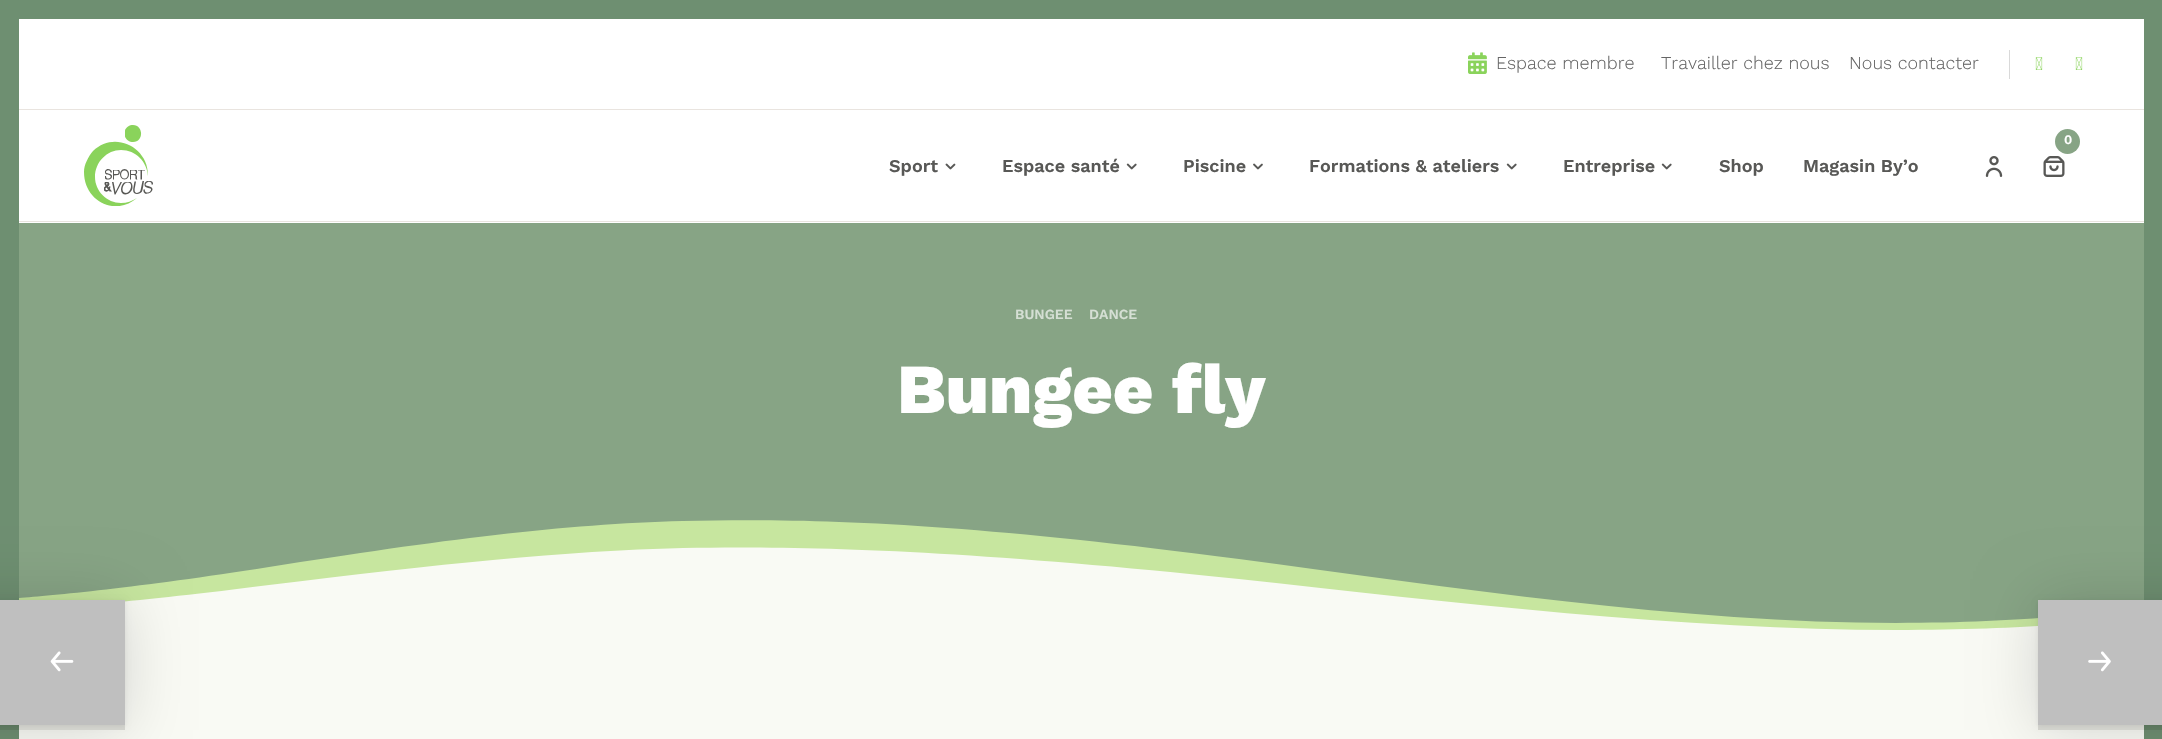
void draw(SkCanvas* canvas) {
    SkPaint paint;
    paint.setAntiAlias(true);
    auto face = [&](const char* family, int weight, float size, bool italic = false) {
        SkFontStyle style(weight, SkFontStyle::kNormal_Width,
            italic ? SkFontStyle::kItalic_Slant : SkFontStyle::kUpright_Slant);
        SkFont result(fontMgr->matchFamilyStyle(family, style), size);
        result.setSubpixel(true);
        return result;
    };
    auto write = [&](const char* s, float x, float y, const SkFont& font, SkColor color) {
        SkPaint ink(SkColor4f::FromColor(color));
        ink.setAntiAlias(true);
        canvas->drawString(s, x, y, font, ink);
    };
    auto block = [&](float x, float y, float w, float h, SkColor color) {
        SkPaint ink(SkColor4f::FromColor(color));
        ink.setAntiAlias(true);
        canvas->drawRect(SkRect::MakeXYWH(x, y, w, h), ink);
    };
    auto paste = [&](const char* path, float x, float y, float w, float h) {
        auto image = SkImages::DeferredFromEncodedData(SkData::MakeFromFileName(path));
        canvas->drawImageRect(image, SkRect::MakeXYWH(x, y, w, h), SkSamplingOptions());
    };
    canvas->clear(SkColorSetRGB(110, 143, 113));
    block(2144, 725, 18, 5, SkColorSetRGB(94, 122, 96));
    block(0, 725, 19, 5, SkColorSetRGB(94, 122, 96));
    block(19, 19, 2125, 90, SK_ColorWHITE);
    block(19, 109, 2125, 1, SkColorSetRGB(233, 228, 223));
    paste("pic1.png", 1468, 52, 19, 22);
    auto kFont1 = face("Work Sans", 300, 18);
    write("Espace membre", 1496, 69, kFont1, SkColorSetRGB(101, 101, 101));
    write("Travailler chez nous", 1661, 69, kFont1, SkColorSetRGB(101, 101, 101));
    write("Nous contacter", 1849, 69, kFont1, SkColorSetRGB(101, 101, 101));
    block(2009, 50, 1, 29, SkColorSetRGB(217, 217, 217));
    paste("pic2.png", 2035, 57, 8, 13);
    paste("pic2.png", 2075, 57, 8, 13);
    block(19, 110, 2125, 113, SK_ColorWHITE);
    block(19, 221, 2125, 1, SkColorSetRGB(233, 228, 223));
    paint.setColor(SkColorSetRGB(138, 211, 91));
    canvas->drawPath(SkPathBuilder().moveTo(133, 125).cubicTo(143.5f, 125, 144, 142, 133, 142).cubicTo(129.5f, 142, 126, 140, 125, 136.5f).lineTo(125, 130.5f).cubicTo(126, 127, 129.5f, 125, 133, 125).close().detach(), paint);
    canvas->save();
    canvas->clipRect(SkRect::MakeXYWH(84, 125, 70, 81));
    canvas->drawPath(SkPathBuilder().moveTo(84, 172).cubicTo(84, 165, 88, 157, 93, 151).cubicTo(114, 130, 149, 147, 148, 176).cubicTo(147, 162, 136, 150, 121, 150).cubicTo(107, 150, 95, 162, 95, 177).cubicTo(95, 191, 107, 203, 121, 203).cubicTo(127, 203, 132, 201, 137, 198).cubicTo(115, 217, 84, 201, 84, 172).close().detach(), paint);
    canvas->restore();
    paint.setColor(SkColorSetRGB(88, 88, 85));
    canvas->drawPath(SkPathBuilder().moveTo(108, 169).cubicTo(110, 169, 112, 170.5f, 112, 172.5f).lineTo(110.5f, 172.5f).cubicTo(110.5f, 171, 109, 170, 107.5f, 170.5f).cubicTo(107, 170.5f, 106.5f, 171, 106, 171.5f).cubicTo(105, 174.5f, 113, 172.5f, 112, 177).cubicTo(111, 180.5f, 105, 180, 105, 178).lineTo(105, 176).lineTo(106, 176).cubicTo(106, 181, 113, 177.5f, 110, 175.5f).cubicTo(108, 174, 105, 175.5f, 105, 172).cubicTo(105, 171, 105, 171, 105.5f, 170.5f).cubicTo(106, 169.5f, 107, 169, 108, 169).close().detach(), paint);
    canvas->drawPath(SkPathBuilder(SkPathFillType::kEvenOdd).moveTo(113, 170).lineTo(119, 170).cubicTo(120.5f, 171.5f, 120, 174.5f, 118, 175).lineTo(114, 175.5f).lineTo(114, 179.5f).lineTo(113, 179.5f).close().moveTo(117, 170.5f).cubicTo(119, 170.5f, 119, 173.5f, 117.5f, 174).lineTo(114, 174).lineTo(114, 170.5f).close().moveTo(124.5f, 169).cubicTo(118.5f, 169, 118.5f, 179.5f, 124.5f, 179.5f).cubicTo(130.5f, 179.5f, 130.5f, 169, 124.5f, 169).close().moveTo(124.5f, 170.5f).cubicTo(129, 170.5f, 129, 178.5f, 124.5f, 178.5f).cubicTo(120, 178.5f, 120, 170.5f, 124.5f, 170.5f).close().moveTo(130, 170).lineTo(136.5f, 170).cubicTo(137.5f, 171, 137.5f, 173.5f, 136, 174.5f).cubicTo(137, 175.5f, 137, 177.5f, 137, 179).lineTo(137.5f, 179.5f).lineTo(136, 179.5f).cubicTo(134.5f, 178, 137, 175, 133.5f, 175).lineTo(131, 175).lineTo(131, 179.5f).lineTo(130, 179.5f).close().moveTo(134.5f, 170.5f).cubicTo(136, 170.5f, 136.5f, 173.5f, 135, 174).lineTo(131, 174).lineTo(131, 170.5f).close().detach(), paint);
    canvas->drawPath(SkPathBuilder().moveTo(138, 170).lineTo(145, 170).lineTo(145, 170.5f).lineTo(142, 170.5f).lineTo(142, 179.5f).lineTo(140.5f, 179.5f).lineTo(140.5f, 170.5f).lineTo(138, 170.5f).close().moveTo(113.5f, 182).lineTo(115.5f, 192).lineTo(120.5f, 182).lineTo(122, 182).lineTo(115.5f, 194.5f).lineTo(114.5f, 194.5f).lineTo(112, 182).close().detach(), paint);
    canvas->drawPath(SkPathBuilder().moveTo(144, 181).cubicTo(143.5f, 184, 143, 189, 142, 191.5f).cubicTo(141, 193, 139, 194, 137, 194).cubicTo(132.5f, 194, 133, 190, 133.5f, 187).lineTo(134.5f, 181.5f).lineTo(136, 181.5f).lineTo(135, 187).cubicTo(134.5f, 189, 134, 193, 137, 193).cubicTo(138.5f, 192.5f, 140, 192, 140.5f, 190.5f).lineTo(142.5f, 181).close().detach(), paint);
    canvas->drawPath(SkPathBuilder().moveTo(152, 181.5f).cubicTo(151, 180.5f, 149.5f, 181, 148, 181).cubicTo(147, 181, 146, 181.5f, 145.5f, 182).cubicTo(144.5f, 183, 144.5f, 184, 144.5f, 185).cubicTo(144.5f, 189, 152, 187, 151, 190).cubicTo(150.5f, 191, 150, 191.5f, 149.5f, 192).cubicTo(148.5f, 192.5f, 147.5f, 192.5f, 146.5f, 192.5f).cubicTo(145, 192, 144.5f, 190.5f, 145, 189.5f).lineTo(143.5f, 189.5f).cubicTo(143, 191.5f, 144, 193.5f, 146, 194).lineTo(147, 193.5f).cubicTo(148.5f, 193.5f, 150.5f, 193, 151.5f, 191.5f).cubicTo(152, 191, 152.5f, 190, 152.5f, 189).cubicTo(152, 185, 143.5f, 187, 146, 183.5f).cubicTo(146.5f, 182.5f, 147.5f, 182.5f, 148, 182).cubicTo(150, 181.5f, 152, 182.5f, 151.5f, 184.5f).lineTo(153, 184.5f).cubicTo(153, 183, 153, 182.5f, 152, 181.5f).close().detach(), paint);
    canvas->drawPath(SkPathBuilder(SkPathFillType::kEvenOdd).moveTo(104, 187.5f).lineTo(105.5f, 186).cubicTo(104.5f, 185, 104, 183, 105, 182).lineTo(108.5f, 182).cubicTo(110, 183.5f, 109.5f, 185.5f, 108, 186.5f).lineTo(109, 187.5f).lineTo(109, 186.5f).lineTo(110.5f, 186.5f).lineTo(110, 189).lineTo(112, 191.5f).lineTo(109.5f, 191.5f).lineTo(109, 190.5f).cubicTo(107.5f, 192, 105, 192, 104, 190.5f).close().moveTo(107, 183).cubicTo(108, 183, 107, 184.5f, 107, 185).cubicTo(106.5f, 184.5f, 105.5f, 183, 107, 183).close().moveTo(106.5f, 187.5f).lineTo(108, 189.5f).cubicTo(106.5f, 191, 104, 189, 106.5f, 187.5f).close().detach(), paint);
    canvas->drawPath(SkPathBuilder(SkPathFillType::kEvenOdd).moveTo(131.5f, 183).lineTo(130.5f, 182).cubicTo(128.5f, 182, 125.5f, 181.5f, 124, 182.5f).cubicTo(122, 184.5f, 121, 187, 121, 189.5f).cubicTo(121, 197, 131, 195.5f, 132.5f, 188).cubicTo(132.5f, 186, 132.5f, 184.5f, 131.5f, 183).close().moveTo(128, 182.5f).cubicTo(133.5f, 182.5f, 131, 192.5f, 126, 193).cubicTo(120, 193, 122.5f, 183, 127.5f, 182.5f).close().detach(), paint);
    paint.setColor(SkColorSetRGB(135, 164, 133));
    canvas->drawCircle(2067.5f, 141.5f, 12.5f, paint);
    auto kFont2 = face("Work Sans", 600, 13);
    write("0", 2064, 144, kFont2, SK_ColorWHITE);
    paste("pic3.png", 2043, 156, 22, 21);
    paste("pic4.png", 1985, 156, 18, 21);
    auto kFont3 = face("Work Sans", 600, 18);
    write("Sport", 889, 172, kFont3, SkColorSetRGB(88, 88, 86));
    paste("pic5.png", 945, 163, 11, 7);
    write("Espace santé", 1002, 172, kFont3, SkColorSetRGB(88, 88, 86));
    paste("pic6.png", 1126, 163, 11, 7);
    write("Piscine", 1183, 172, kFont3, SkColorSetRGB(88, 88, 86));
    paste("pic7.png", 1253, 163, 10, 7);
    write("Formations & ateliers", 1309, 172, kFont3, SkColorSetRGB(88, 88, 86));
    paste("pic6.png", 1506, 163, 11, 7);
    write("Entreprise", 1563, 172, kFont3, SkColorSetRGB(88, 88, 86));
    paste("pic6.png", 1661, 163, 11, 7);
    write("Shop", 1719, 172, kFont3, SkColorSetRGB(88, 88, 86));
    write("Magasin By’o", 1803, 172, kFont3, SkColorSetRGB(88, 88, 86));
    block(19, 223, 2125, 400, SkColorSetRGB(135, 164, 133));
    auto kFont4 = face("Work Sans", 600, 14);
    write("BUNGEE", 1015, 319, kFont4, SkColorSetRGB(213, 223, 212));
    write("DANCE", 1089, 319, kFont4, SkColorSetRGB(213, 223, 212));
    auto kFont5 = face("Work Sans", 800, 70);
    write("Bungee fly", 897, 413, kFont5, SK_ColorWHITE);
    block(19, 659, 2125, 80, SkColorSetRGB(249, 250, 244));
    block(2038, 725, 106, 5, SkColorSetRGB(212, 213, 207));
    block(19, 725, 106, 5, SkColorSetRGB(212, 213, 207));
    canvas->save();
    canvas->clipRect(SkRect::MakeXYWH(19, 471, 2125, 188));
    paint.setColor(SkColorSetRGB(199, 230, 159));
    canvas->drawPath(SkPathBuilder().moveTo(1896, 623).cubicTo(1686, 623, 1447, 587, 1239, 559).cubicTo(952, 521, 803, 518, 683, 521).cubicTo(564, 524, 440, 540, 269, 567).cubicTo(98, 594, 5, 599, 5, 599).lineTo(5, 668).lineTo(2157, 668).lineTo(2157, 604).cubicTo(2157, 604, 2066, 623, 1896, 623).close().detach(), paint);
    canvas->restore();
    canvas->save();
    canvas->clipRect(SkRect::MakeXYWH(19, 509, 2125, 150));
    paint.setColor(SkColorSetRGB(249, 250, 244));
    canvas->drawPath(SkPathBuilder().moveTo(1896, 630).cubicTo(1686, 630, 1447, 602, 1239, 579).cubicTo(952, 549, 803, 546, 683, 548).cubicTo(564, 551, 440, 564, 269, 585).cubicTo(98, 607, 5, 611, 5, 611).lineTo(5, 667).lineTo(2157, 667).lineTo(2157, 615).cubicTo(2157, 615, 2066, 630, 1896, 630).close().detach(), paint);
    canvas->restore();
    canvas->save();
    canvas->clipPath(SkPathBuilder(SkPathFillType::kEvenOdd).moveTo(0, 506).lineTo(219, 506).lineTo(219, 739).lineTo(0, 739).close().moveTo(-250, 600).lineTo(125, 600).lineTo(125, 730).lineTo(-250, 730).close().detach(), true);
    paint.setColor(SkColorSetARGB(38, 0, 0, 0));
    paint.setMaskFilter(SkMaskFilter::MakeBlur(kNormal_SkBlurStyle, 31));
    canvas->drawRect(SkRect::MakeXYWH(-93, 600, 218, 130), paint);
    paint.setMaskFilter(nullptr);
    canvas->restore();
    paint.setColor(SkColorSetARGB(20, 0, 0, 0));
    paint.setMaskFilter(SkMaskFilter::MakeBlur(kNormal_SkBlurStyle, 2.5f));
    canvas->drawRect(SkRect::MakeXYWH(-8, 601, 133, 125), paint);
    paint.setMaskFilter(nullptr);
    block(0, 600, 125, 125, SkColorSetRGB(191, 191, 191));
    paste("pic8.png", 50, 651, 24, 21);
    canvas->save();
    canvas->clipPath(SkPathBuilder(SkPathFillType::kEvenOdd).moveTo(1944, 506).lineTo(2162, 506).lineTo(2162, 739).lineTo(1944, 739).close().moveTo(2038, 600).lineTo(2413, 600).lineTo(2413, 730).lineTo(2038, 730).close().detach(), true);
    paint.setColor(SkColorSetARGB(38, 0, 0, 0));
    paint.setMaskFilter(SkMaskFilter::MakeBlur(kNormal_SkBlurStyle, 31));
    canvas->drawRect(SkRect::MakeXYWH(2038, 600, 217, 130), paint);
    paint.setMaskFilter(nullptr);
    canvas->restore();
    paint.setColor(SkColorSetARGB(20, 0, 0, 0));
    paint.setMaskFilter(SkMaskFilter::MakeBlur(kNormal_SkBlurStyle, 2.5f));
    canvas->drawRect(SkRect::MakeXYWH(2038, 601, 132, 125), paint);
    paint.setMaskFilter(nullptr);
    block(2038, 600, 124, 125, SkColorSetRGB(191, 191, 191));
    paste("pic9.png", 2088, 651, 23, 21);
}
